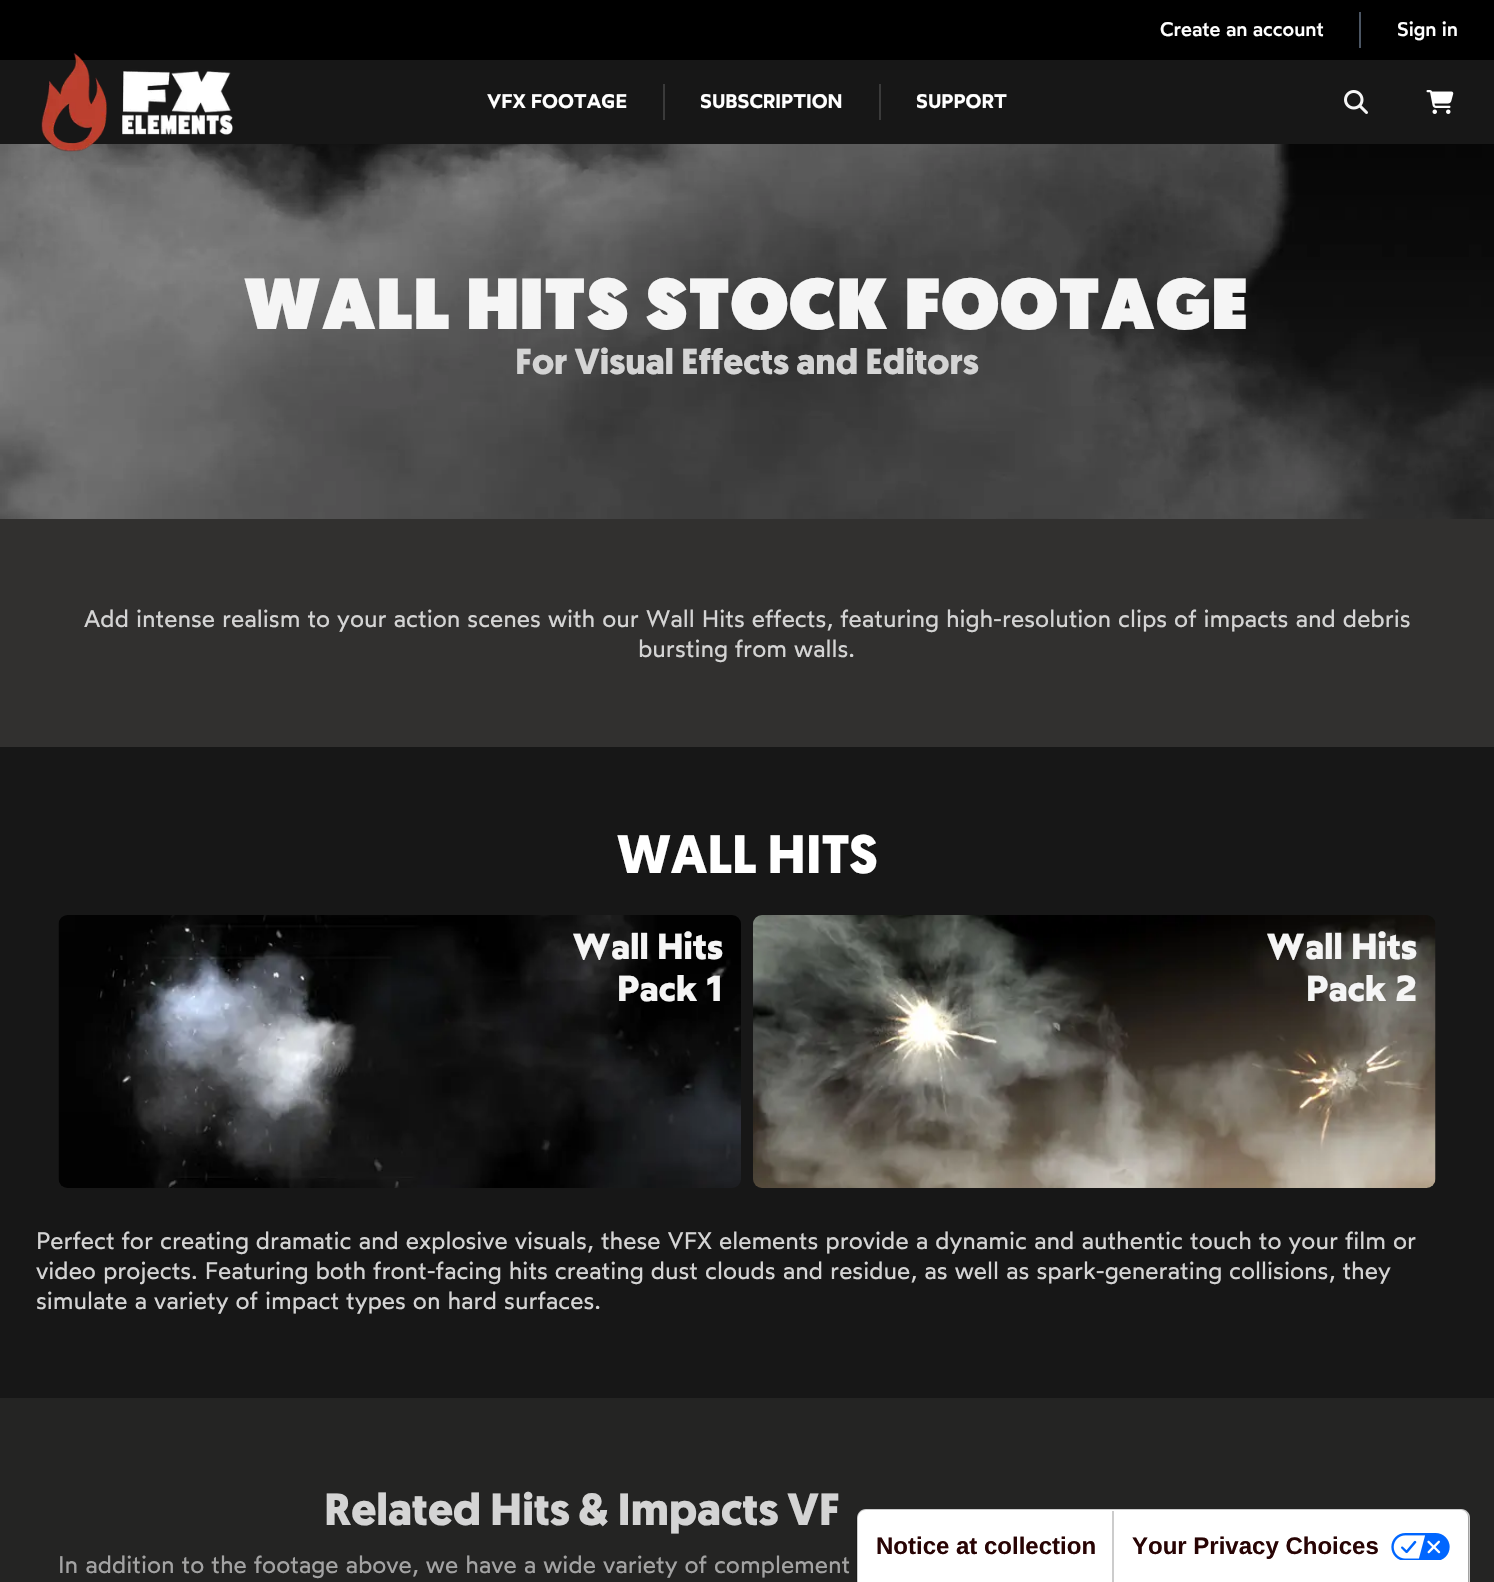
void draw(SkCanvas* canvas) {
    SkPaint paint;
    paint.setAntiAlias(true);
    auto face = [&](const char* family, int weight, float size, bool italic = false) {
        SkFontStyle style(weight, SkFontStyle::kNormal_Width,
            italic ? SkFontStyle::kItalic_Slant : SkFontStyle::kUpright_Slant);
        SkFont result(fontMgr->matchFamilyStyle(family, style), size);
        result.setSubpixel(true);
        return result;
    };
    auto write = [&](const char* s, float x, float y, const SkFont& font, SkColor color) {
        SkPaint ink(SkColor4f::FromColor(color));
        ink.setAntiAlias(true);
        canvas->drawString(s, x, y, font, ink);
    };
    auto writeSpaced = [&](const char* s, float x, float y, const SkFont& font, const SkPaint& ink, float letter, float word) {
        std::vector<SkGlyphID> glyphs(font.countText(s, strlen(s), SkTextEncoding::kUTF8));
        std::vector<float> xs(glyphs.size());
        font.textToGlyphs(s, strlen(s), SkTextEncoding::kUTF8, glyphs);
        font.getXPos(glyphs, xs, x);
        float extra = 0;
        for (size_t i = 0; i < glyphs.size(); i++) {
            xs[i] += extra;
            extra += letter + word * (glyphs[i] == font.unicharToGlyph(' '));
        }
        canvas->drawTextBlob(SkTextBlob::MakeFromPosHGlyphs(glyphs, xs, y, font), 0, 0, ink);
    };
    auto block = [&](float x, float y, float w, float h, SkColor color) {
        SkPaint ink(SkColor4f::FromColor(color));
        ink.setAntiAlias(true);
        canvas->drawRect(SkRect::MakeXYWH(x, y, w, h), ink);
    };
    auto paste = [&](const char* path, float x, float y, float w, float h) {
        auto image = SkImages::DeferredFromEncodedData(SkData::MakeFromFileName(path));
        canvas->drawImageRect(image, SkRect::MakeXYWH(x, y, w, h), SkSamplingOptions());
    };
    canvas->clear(SkColorSetRGB(49, 48, 47));
    block(0, 0, 1494, 60, SK_ColorBLACK);
    auto kFont1 = face("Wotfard", 500, 19.75f);
    write("Create an account", 1160, 36, kFont1, SK_ColorWHITE);
    block(1359, 12, 2, 36, SkColorSetRGB(75, 85, 99));
    write("Sign in", 1397, 36, kFont1, SK_ColorWHITE);
    block(0, 60, 1494, 84, SkColorSetRGB(23, 23, 23));
    paste("pic4.png", 0, 144, 1494, 375);
    paste("pic1.png", 41, 52, 192, 100);
    auto kFont2 = face("Wotfard", 600, 19.75f);
    write("VFX FOOTAGE", 487, 108, kFont2, SK_ColorWHITE);
    block(663, 84, 2, 36, SkColorSetRGB(58, 58, 58));
    write("SUBSCRIPTION", 700, 108, kFont2, SK_ColorWHITE);
    block(879, 84, 2, 36, SkColorSetRGB(58, 58, 58));
    write("SUPPORT", 916, 108, kFont2, SK_ColorWHITE);
    paste("pic2.png", 1344, 90, 24, 24);
    paste("pic3.png", 1426, 90, 28, 24);
    auto kFont3 = face("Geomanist", 900, 72);
    paint.setColor(SkColorSetRGB(245, 245, 245));
    writeSpaced("WALL HITS STOCK FOOTAGE", 244, 329, kFont3, paint, 1.8f, 0);
    auto kFont4 = face("Geomanist", 700, 36);
    write("For Visual Effects and Editors", 515, 374, kFont4, SkColorSetRGB(212, 212, 212));
    auto kFont5 = face("Wotfard", 400, 24);
    write("Add intense realism to your action scenes with our Wall Hits effects, featuring high-resolution clips of impacts and debris", 84, 627, kFont5, SkColorSetRGB(212, 212, 212));
    write("bursting from walls.", 638, 657, kFont5, SkColorSetRGB(212, 212, 212));
    block(0, 747, 1494, 651, SkColorSetRGB(23, 23, 23));
    auto kFont6 = face("Geomanist", 700, 54);
    write("WALL HITS", 617, 873, kFont6, SK_ColorWHITE);
    paste("pic5.png", 58, 915, 683, 273);
    auto kFont7 = face("Wotfard", 700, 36);
    write("Wall Hits", 572, 959, kFont7, SkColorSetRGB(245, 245, 245));
    write("Pack 1", 617, 1001, kFont7, SkColorSetRGB(245, 245, 245));
    paste("pic6.png", 753, 915, 683, 273);
    write("Wall Hits", 1266, 959, kFont7, SkColorSetRGB(245, 245, 245));
    write("Pack 2", 1306, 1001, kFont7, SkColorSetRGB(245, 245, 245));
    write("Perfect for creating dramatic and explosive visuals, these VFX elements provide a dynamic and authentic touch to your film or", 36, 1249, kFont5, SkColorSetRGB(212, 212, 212));
    write("video projects. Featuring both front-facing hits creating dust clouds and residue, as well as spark-generating collisions, they", 36, 1279, kFont5, SkColorSetRGB(212, 212, 212));
    write("simulate a variety of impact types on hard surfaces.", 36, 1309, kFont5, SkColorSetRGB(212, 212, 212));
    block(0, 1398, 1494, 184, SkColorSetRGB(36, 36, 35));
    auto kFont8 = face("Geomanist", 700, 45);
    write("Related Hits & Impacts VF", 324, 1525, kFont8, SkColorSetRGB(212, 212, 212));
    write("In addition to the footage above, we have a wide variety of complement", 58, 1573, kFont5, SkColorSetRGB(163, 163, 163));
    paint.setColor(SK_ColorWHITE);
    canvas->drawPath(SkPathBuilder().moveTo(866, 1509).lineTo(1461, 1509).cubicTo(1466, 1509, 1470, 1513, 1470, 1518).lineTo(1470, 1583).lineTo(857, 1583).lineTo(857, 1518).cubicTo(857, 1513, 861, 1509, 866, 1509).close().detach(), paint);
    paint.setColor(SkColorSetARGB(51, 0, 0, 0));
    canvas->drawPath(SkPathBuilder(SkPathFillType::kEvenOdd).moveTo(866, 1509).lineTo(1461, 1509).cubicTo(1466, 1509, 1470, 1513, 1470, 1518).lineTo(1470, 1582).lineTo(856, 1582).lineTo(856, 1518).cubicTo(856, 1513, 861, 1509, 866, 1509).close().moveTo(866, 1510).lineTo(1461, 1510).cubicTo(1465, 1510, 1468, 1514, 1468, 1518).lineTo(1468, 1582).lineTo(858, 1582).lineTo(858, 1518).cubicTo(858, 1514, 861, 1510, 866, 1510).close().detach(), paint);
    auto kFont9 = face("Liberation Sans", 700, 24);
    write("Notice at collection", 876, 1554, kFont9, SkColorSetRGB(40, 4, 4));
    canvas->drawPath(SkPathBuilder().moveTo(1114, 1511).lineTo(1114, 1582).lineTo(1468, 1582).lineTo(1468, 1515).cubicTo(1469, 1516, 1469, 1518, 1469, 1519).lineTo(1469, 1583).lineTo(1112, 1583).lineTo(1112, 1511).close().detach(), paint);
    write("Your Privacy Choices", 1132, 1554, kFont9, SkColorSetRGB(40, 4, 4));
    paste("pic7.png", 1391, 1533, 59, 27);
}
